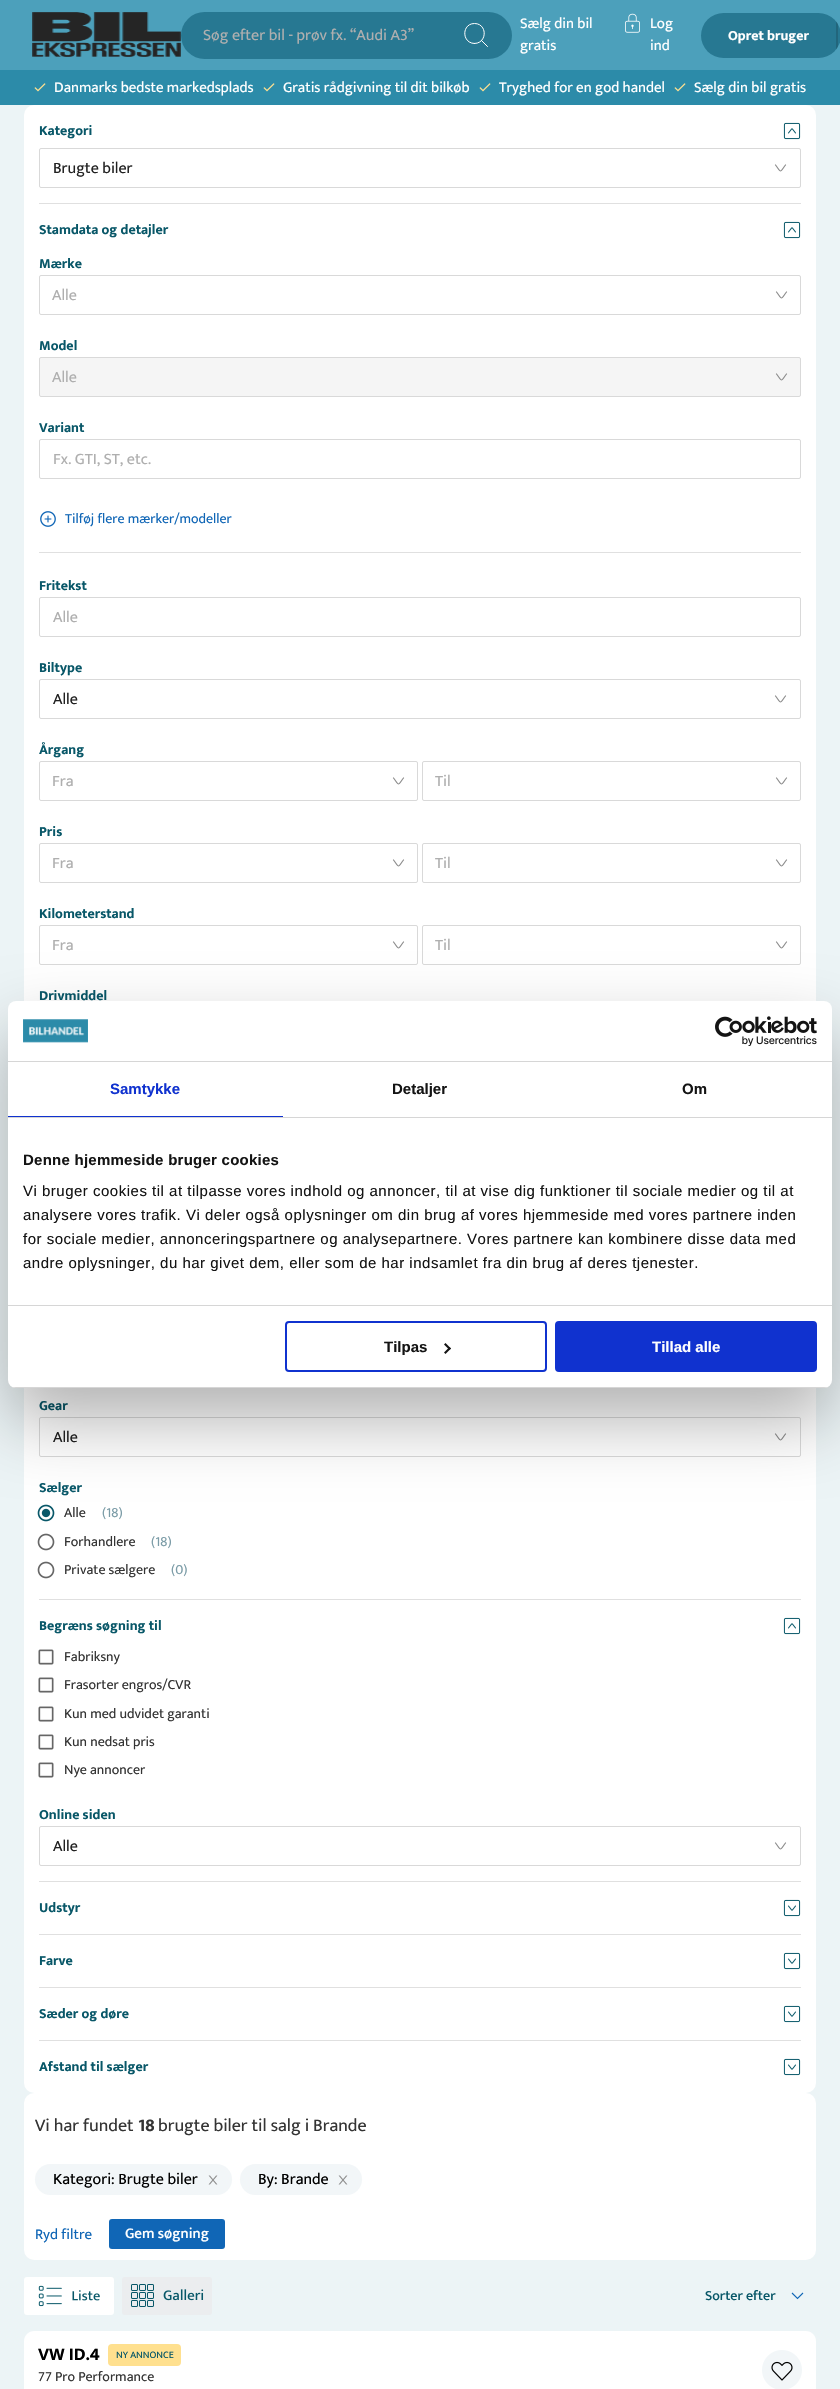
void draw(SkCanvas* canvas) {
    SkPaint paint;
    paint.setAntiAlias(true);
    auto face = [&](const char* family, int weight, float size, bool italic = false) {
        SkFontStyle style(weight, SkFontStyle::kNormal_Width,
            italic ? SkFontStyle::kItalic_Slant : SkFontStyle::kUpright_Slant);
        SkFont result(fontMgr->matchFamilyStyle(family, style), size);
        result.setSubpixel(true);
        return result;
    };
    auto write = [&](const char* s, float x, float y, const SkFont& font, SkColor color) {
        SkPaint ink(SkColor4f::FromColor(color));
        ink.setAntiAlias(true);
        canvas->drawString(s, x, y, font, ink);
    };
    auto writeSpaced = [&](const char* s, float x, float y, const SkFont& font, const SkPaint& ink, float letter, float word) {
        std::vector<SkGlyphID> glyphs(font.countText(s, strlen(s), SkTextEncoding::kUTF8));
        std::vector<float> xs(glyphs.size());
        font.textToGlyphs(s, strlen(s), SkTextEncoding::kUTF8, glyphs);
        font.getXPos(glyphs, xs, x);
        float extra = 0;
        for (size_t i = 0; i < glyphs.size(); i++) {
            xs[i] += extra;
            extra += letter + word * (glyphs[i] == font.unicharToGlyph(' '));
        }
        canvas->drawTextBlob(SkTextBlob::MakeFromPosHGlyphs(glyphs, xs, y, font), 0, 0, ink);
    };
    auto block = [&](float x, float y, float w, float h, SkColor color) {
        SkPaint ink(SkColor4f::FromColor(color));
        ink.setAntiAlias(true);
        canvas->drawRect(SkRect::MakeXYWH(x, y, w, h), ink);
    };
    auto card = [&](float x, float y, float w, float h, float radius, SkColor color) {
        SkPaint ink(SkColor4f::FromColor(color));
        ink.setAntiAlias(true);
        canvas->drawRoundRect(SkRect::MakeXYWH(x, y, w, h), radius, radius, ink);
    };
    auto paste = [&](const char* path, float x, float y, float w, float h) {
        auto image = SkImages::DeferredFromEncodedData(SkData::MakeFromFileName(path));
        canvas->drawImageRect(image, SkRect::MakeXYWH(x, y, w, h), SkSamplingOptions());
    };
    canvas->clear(SkColorSetRGB(236, 244, 246));
    block(0, 0, 840, 70, SkColorSetRGB(76, 160, 187));
    paste("pic1.png", 32, 12, 149, 45);
    card(181, 12, 331, 47, 23.5f, SkColorSetRGB(39, 120, 146));
    auto kFont1 = face("Mukta", 400, 16);
    write("Søg efter bil - prøv fx. “Audi A3”", 203, 40, kFont1, SkColorSetRGB(175, 175, 175));
    paint.setStyle(SkPaint::kStroke_Style);
    paint.setStrokeWidth(1);
    paint.setStrokeCap(SkPaint::kRound_Cap);
    paint.setStrokeJoin(SkPaint::kRound_Join);
    paint.setColor(SK_ColorWHITE);
    canvas->drawPath(SkPathBuilder().moveTo(474.5f, 43.5f).cubicTo(487.5f, 43.5f, 487.5f, 23.5f, 474.5f, 23.5f).cubicTo(461.5f, 23.5f, 461.5f, 43.5f, 474.5f, 43.5f).close().moveTo(487.5f, 46.5f).lineTo(481.5f, 40.5f).detach(), paint);
    auto kFont2 = face("Mukta", 400, 15);
    write("Sælg din bil", 520, 28, kFont2, SK_ColorWHITE);
    write("gratis", 520, 50, kFont2, SK_ColorWHITE);
    paste("pic2.png", 625, 13, 15, 20);
    write("Log", 650, 28, kFont2, SK_ColorWHITE);
    write("ind", 650, 50, kFont2, SK_ColorWHITE);
    card(701, 13, 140, 45, 22.5f, SkColorSetRGB(39, 120, 146));
    canvas->save();
    canvas->clipPath(SkPathBuilder().moveTo(723.5f, 13).lineTo(818.5f, 13).cubicTo(831, 13, 841, 23, 841, 35.5f).cubicTo(841, 48, 831, 58, 818.5f, 58).lineTo(723.5f, 58).cubicTo(711, 58, 701, 48, 701, 35.5f).cubicTo(701, 23, 711, 13, 723.5f, 13).close().detach(), true);
    block(836, 13, 2, 45, SkColorSetARGB(38, 0, 0, 0));
    canvas->restore();
    auto kFont3 = face("Mukta", 700, 14);
    write("Opret bruger", 728, 40, kFont3, SK_ColorWHITE);
    block(0, 70, 840, 35, SkColorSetRGB(44, 139, 169));
    paste("pic3.png", 34, 83, 12, 9);
    write("Danmarks bedste markedsplads", 54, 92, kFont2, SK_ColorWHITE);
    paste("pic3.png", 263, 83, 12, 9);
    write("Gratis rådgivning til dit bilkøb", 283, 92, kFont2, SK_ColorWHITE);
    paste("pic3.png", 479, 83, 12, 9);
    write("Tryghed for en god handel", 499, 92, kFont2, SK_ColorWHITE);
    paste("pic3.png", 674, 83, 12, 9);
    write("Sælg din bil gratis", 694, 92, kFont2, SK_ColorWHITE);
    card(24, 105, 792, 1988, 10, SK_ColorWHITE);
    write("Kategori", 39, 135, kFont3, SkColorSetRGB(8, 87, 104));
    paste("pic4.png", 783, 122, 18, 18);
    paint.setStrokeCap(SkPaint::kButt_Cap);
    paint.setStrokeJoin(SkPaint::kMiter_Join);
    paint.setColor(SkColorSetRGB(217, 217, 217));
    canvas->drawRoundRect(SkRect::MakeXYWH(39.5f, 148.5f, 761, 39), 1.5f, 1.5f, paint);
    write("Brugte biler", 53, 173, kFont1, SkColorSetRGB(33, 33, 33));
    paint.setStrokeWidth(1.2f);
    paint.setStrokeCap(SkPaint::kRound_Cap);
    paint.setStrokeJoin(SkPaint::kRound_Join);
    paint.setColor(SkColorSetRGB(140, 140, 140));
    canvas->drawPath(SkPathBuilder().moveTo(785.5f, 165).cubicTo(779.5f, 173, 781.5f, 173, 775.5f, 165).detach(), paint);
    block(39, 203, 762, 1, SkColorSetRGB(224, 224, 224));
    write("Stamdata og detajler", 39, 234, kFont3, SkColorSetRGB(8, 87, 104));
    paste("pic4.png", 783, 221, 18, 18);
    write("Mærke", 39, 268, kFont3, SkColorSetRGB(8, 87, 104));
    paint.setStrokeWidth(1);
    paint.setStrokeCap(SkPaint::kButt_Cap);
    paint.setStrokeJoin(SkPaint::kMiter_Join);
    paint.setColor(SkColorSetRGB(217, 217, 217));
    canvas->drawRoundRect(SkRect::MakeXYWH(39.5f, 275.5f, 761, 39), 1.5f, 1.5f, paint);
    write("Alle", 52, 300, kFont1, SkColorSetRGB(175, 175, 175));
    paint.setStrokeWidth(1.2f);
    paint.setStrokeCap(SkPaint::kRound_Cap);
    paint.setStrokeJoin(SkPaint::kRound_Join);
    paint.setColor(SkColorSetRGB(140, 140, 140));
    canvas->drawPath(SkPathBuilder().moveTo(786.5f, 292).cubicTo(780.5f, 300, 782.5f, 300, 776.5f, 292).detach(), paint);
    write("Model", 39, 350, kFont3, SkColorSetRGB(8, 87, 104));
    paint.setStyle(SkPaint::kFill_Style);
    paint.setColor(SkColorSetRGB(245, 245, 245));
    canvas->drawRoundRect(SkRect::MakeXYWH(39.5f, 357.5f, 761, 39), 1.5f, 1.5f, paint);
    paint.setStyle(SkPaint::kStroke_Style);
    paint.setStrokeWidth(1);
    paint.setStrokeCap(SkPaint::kButt_Cap);
    paint.setStrokeJoin(SkPaint::kMiter_Join);
    paint.setColor(SkColorSetRGB(217, 217, 217));
    canvas->drawRoundRect(SkRect::MakeXYWH(39.5f, 357.5f, 761, 39), 1.5f, 1.5f, paint);
    write("Alle", 52, 382, kFont1, SkColorSetRGB(175, 175, 175));
    paint.setStrokeWidth(1.2f);
    paint.setStrokeCap(SkPaint::kRound_Cap);
    paint.setStrokeJoin(SkPaint::kRound_Join);
    paint.setColor(SkColorSetRGB(140, 140, 140));
    canvas->drawPath(SkPathBuilder().moveTo(786.5f, 374).cubicTo(780.5f, 382, 782.5f, 382, 776.5f, 374).detach(), paint);
    write("Variant", 39, 432, kFont3, SkColorSetRGB(8, 87, 104));
    paint.setStrokeWidth(1);
    paint.setStrokeCap(SkPaint::kButt_Cap);
    paint.setStrokeJoin(SkPaint::kMiter_Join);
    paint.setColor(SkColorSetRGB(217, 217, 217));
    canvas->drawRoundRect(SkRect::MakeXYWH(39.5f, 439.5f, 761, 39), 1.5f, 1.5f, paint);
    write("Fx. GTI, ST, etc.", 53, 464, kFont1, SkColorSetRGB(175, 175, 175));
    paste("pic5.png", 40, 511, 16, 16);
    auto kFont4 = face("Mukta", 400, 14);
    write("Tilføj flere mærker/modeller", 65, 523, kFont4, SkColorSetRGB(16, 102, 182));
    block(39, 552, 762, 1, SkColorSetRGB(224, 224, 224));
    write("Fritekst", 39, 590, kFont3, SkColorSetRGB(8, 87, 104));
    canvas->drawRoundRect(SkRect::MakeXYWH(39.5f, 597.5f, 761, 39), 1.5f, 1.5f, paint);
    write("Alle", 53, 622, kFont1, SkColorSetRGB(175, 175, 175));
    write("Biltype", 39, 672, kFont3, SkColorSetRGB(8, 87, 104));
    canvas->drawRoundRect(SkRect::MakeXYWH(39.5f, 679.5f, 761, 39), 1.5f, 1.5f, paint);
    write("Alle", 53, 704, kFont1, SkColorSetRGB(33, 33, 33));
    paint.setStrokeWidth(1.2f);
    paint.setStrokeCap(SkPaint::kRound_Cap);
    paint.setStrokeJoin(SkPaint::kRound_Join);
    paint.setColor(SkColorSetRGB(140, 140, 140));
    canvas->drawPath(SkPathBuilder().moveTo(785.5f, 696).cubicTo(779.5f, 704, 781.5f, 704, 775.5f, 696).detach(), paint);
    write("Årgang", 39, 754, kFont3, SkColorSetRGB(8, 87, 104));
    paint.setStrokeWidth(1);
    paint.setStrokeCap(SkPaint::kButt_Cap);
    paint.setStrokeJoin(SkPaint::kMiter_Join);
    paint.setColor(SkColorSetRGB(217, 217, 217));
    canvas->drawRoundRect(SkRect::MakeXYWH(39.5f, 761.5f, 378, 39), 1.5f, 1.5f, paint);
    write("Fra", 52, 786, kFont1, SkColorSetRGB(175, 175, 175));
    paint.setStrokeWidth(1.2f);
    paint.setStrokeCap(SkPaint::kRound_Cap);
    paint.setStrokeJoin(SkPaint::kRound_Join);
    paint.setColor(SkColorSetRGB(140, 140, 140));
    canvas->drawPath(SkPathBuilder().moveTo(403.5f, 778).cubicTo(397.5f, 786, 399.5f, 786, 393.5f, 778).detach(), paint);
    paint.setStrokeWidth(1);
    paint.setStrokeCap(SkPaint::kButt_Cap);
    paint.setStrokeJoin(SkPaint::kMiter_Join);
    paint.setColor(SkColorSetRGB(217, 217, 217));
    canvas->drawRoundRect(SkRect::MakeXYWH(422.5f, 761.5f, 378, 39), 1.5f, 1.5f, paint);
    write("Til", 435, 786, kFont1, SkColorSetRGB(175, 175, 175));
    paint.setStrokeWidth(1.2f);
    paint.setStrokeCap(SkPaint::kRound_Cap);
    paint.setStrokeJoin(SkPaint::kRound_Join);
    paint.setColor(SkColorSetRGB(140, 140, 140));
    canvas->drawPath(SkPathBuilder().moveTo(786.5f, 778).cubicTo(780.5f, 786, 782.5f, 786, 776.5f, 778).detach(), paint);
    write("Pris", 39, 836, kFont3, SkColorSetRGB(8, 87, 104));
    paint.setStrokeWidth(1);
    paint.setStrokeCap(SkPaint::kButt_Cap);
    paint.setStrokeJoin(SkPaint::kMiter_Join);
    paint.setColor(SkColorSetRGB(217, 217, 217));
    canvas->drawRoundRect(SkRect::MakeXYWH(39.5f, 843.5f, 378, 39), 1.5f, 1.5f, paint);
    write("Fra", 52, 868, kFont1, SkColorSetRGB(175, 175, 175));
    paint.setStrokeWidth(1.2f);
    paint.setStrokeCap(SkPaint::kRound_Cap);
    paint.setStrokeJoin(SkPaint::kRound_Join);
    paint.setColor(SkColorSetRGB(140, 140, 140));
    canvas->drawPath(SkPathBuilder().moveTo(403.5f, 860).cubicTo(397.5f, 868, 399.5f, 868, 393.5f, 860).detach(), paint);
    paint.setStrokeWidth(1);
    paint.setStrokeCap(SkPaint::kButt_Cap);
    paint.setStrokeJoin(SkPaint::kMiter_Join);
    paint.setColor(SkColorSetRGB(217, 217, 217));
    canvas->drawRoundRect(SkRect::MakeXYWH(422.5f, 843.5f, 378, 39), 1.5f, 1.5f, paint);
    write("Til", 435, 868, kFont1, SkColorSetRGB(175, 175, 175));
    paint.setStrokeWidth(1.2f);
    paint.setStrokeCap(SkPaint::kRound_Cap);
    paint.setStrokeJoin(SkPaint::kRound_Join);
    paint.setColor(SkColorSetRGB(140, 140, 140));
    canvas->drawPath(SkPathBuilder().moveTo(786.5f, 860).cubicTo(780.5f, 868, 782.5f, 868, 776.5f, 860).detach(), paint);
    write("Kilometerstand", 39, 918, kFont3, SkColorSetRGB(8, 87, 104));
    paint.setStrokeWidth(1);
    paint.setStrokeCap(SkPaint::kButt_Cap);
    paint.setStrokeJoin(SkPaint::kMiter_Join);
    paint.setColor(SkColorSetRGB(217, 217, 217));
    canvas->drawRoundRect(SkRect::MakeXYWH(39.5f, 925.5f, 378, 39), 1.5f, 1.5f, paint);
    write("Fra", 52, 950, kFont1, SkColorSetRGB(175, 175, 175));
    paint.setStrokeWidth(1.2f);
    paint.setStrokeCap(SkPaint::kRound_Cap);
    paint.setStrokeJoin(SkPaint::kRound_Join);
    paint.setColor(SkColorSetRGB(140, 140, 140));
    canvas->drawPath(SkPathBuilder().moveTo(403.5f, 942).cubicTo(397.5f, 950, 399.5f, 950, 393.5f, 942).detach(), paint);
    paint.setStrokeWidth(1);
    paint.setStrokeCap(SkPaint::kButt_Cap);
    paint.setStrokeJoin(SkPaint::kMiter_Join);
    paint.setColor(SkColorSetRGB(217, 217, 217));
    canvas->drawRoundRect(SkRect::MakeXYWH(422.5f, 925.5f, 378, 39), 1.5f, 1.5f, paint);
    write("Til", 435, 950, kFont1, SkColorSetRGB(175, 175, 175));
    paint.setStrokeWidth(1.2f);
    paint.setStrokeCap(SkPaint::kRound_Cap);
    paint.setStrokeJoin(SkPaint::kRound_Join);
    paint.setColor(SkColorSetRGB(140, 140, 140));
    canvas->drawPath(SkPathBuilder().moveTo(786.5f, 942).cubicTo(780.5f, 950, 782.5f, 950, 776.5f, 942).detach(), paint);
    write("Drivmiddel", 39, 1000, kFont3, SkColorSetRGB(8, 87, 104));
    write("Gear", 39, 1410, kFont3, SkColorSetRGB(8, 87, 104));
    paint.setStrokeWidth(1);
    paint.setStrokeCap(SkPaint::kButt_Cap);
    paint.setStrokeJoin(SkPaint::kMiter_Join);
    paint.setColor(SkColorSetRGB(217, 217, 217));
    canvas->drawRoundRect(SkRect::MakeXYWH(39.5f, 1417.5f, 761, 39), 1.5f, 1.5f, paint);
    write("Alle", 53, 1442, kFont1, SkColorSetRGB(33, 33, 33));
    paint.setStrokeWidth(1.2f);
    paint.setStrokeCap(SkPaint::kRound_Cap);
    paint.setStrokeJoin(SkPaint::kRound_Join);
    paint.setColor(SkColorSetRGB(140, 140, 140));
    canvas->drawPath(SkPathBuilder().moveTo(785.5f, 1434).cubicTo(779.5f, 1442, 781.5f, 1442, 775.5f, 1434).detach(), paint);
    write("Sælger", 39, 1492, kFont3, SkColorSetRGB(8, 87, 104));
    paste("pic6.png", 37, 1504, 18, 18);
    paste("pic7.png", 41, 1508, 10, 10);
    write("Alle", 64, 1517, kFont4, SkColorSetRGB(52, 52, 52));
    write("(18)", 102, 1517, kFont4, SkColorSetRGB(123, 156, 167));
    paste("pic8.png", 37, 1533, 18, 18);
    write("Forhandlere", 64, 1546, kFont4, SkColorSetRGB(52, 52, 52));
    write("(18)", 151, 1546, kFont4, SkColorSetRGB(123, 156, 167));
    paste("pic8.png", 37, 1561, 18, 18);
    write("Private sælgere", 64, 1574, kFont4, SkColorSetRGB(52, 52, 52));
    write("(0)", 171, 1574, kFont4, SkColorSetRGB(123, 156, 167));
    block(39, 1599, 762, 1, SkColorSetRGB(224, 224, 224));
    write("Begræns søgning til", 39, 1630, kFont3, SkColorSetRGB(8, 87, 104));
    paste("pic4.png", 783, 1617, 18, 18);
    paste("pic9.png", 38, 1649, 16, 16);
    write("Fabriksny", 64, 1661, kFont4, SkColorSetRGB(52, 52, 52));
    paste("pic9.png", 38, 1677, 16, 16);
    write("Frasorter engros/CVR", 64, 1689, kFont4, SkColorSetRGB(52, 52, 52));
    paste("pic9.png", 38, 1706, 16, 16);
    write("Kun med udvidet garanti", 64, 1718, kFont4, SkColorSetRGB(52, 52, 52));
    paste("pic9.png", 38, 1734, 16, 16);
    write("Kun nedsat pris", 64, 1746, kFont4, SkColorSetRGB(52, 52, 52));
    paste("pic9.png", 38, 1762, 16, 16);
    write("Nye annoncer", 64, 1774, kFont4, SkColorSetRGB(52, 52, 52));
    write("Online siden", 39, 1819, kFont3, SkColorSetRGB(8, 87, 104));
    paint.setStrokeWidth(1);
    paint.setStrokeCap(SkPaint::kButt_Cap);
    paint.setStrokeJoin(SkPaint::kMiter_Join);
    paint.setColor(SkColorSetRGB(217, 217, 217));
    canvas->drawRoundRect(SkRect::MakeXYWH(39.5f, 1826.5f, 761, 39), 1.5f, 1.5f, paint);
    write("Alle", 53, 1851, kFont1, SkColorSetRGB(33, 33, 33));
    paint.setStrokeWidth(1.2f);
    paint.setStrokeCap(SkPaint::kRound_Cap);
    paint.setStrokeJoin(SkPaint::kRound_Join);
    paint.setColor(SkColorSetRGB(140, 140, 140));
    canvas->drawPath(SkPathBuilder().moveTo(785.5f, 1843).cubicTo(779.5f, 1851, 781.5f, 1851, 775.5f, 1843).detach(), paint);
    block(39, 1881, 762, 1, SkColorSetRGB(224, 224, 224));
    write("Udstyr", 39, 1912, kFont3, SkColorSetRGB(8, 87, 104));
    paste("pic10.png", 783, 1899, 18, 18);
    block(39, 1934, 762, 1, SkColorSetRGB(224, 224, 224));
    write("Farve", 39, 1965, kFont3, SkColorSetRGB(8, 87, 104));
    paste("pic10.png", 783, 1952, 18, 18);
    block(39, 1987, 762, 1, SkColorSetRGB(224, 224, 224));
    write("Sæder og døre", 39, 2018, kFont3, SkColorSetRGB(8, 87, 104));
    paste("pic10.png", 783, 2005, 18, 18);
    block(39, 2040, 762, 1, SkColorSetRGB(224, 224, 224));
    write("Afstand til sælger", 39, 2071, kFont3, SkColorSetRGB(8, 87, 104));
    paste("pic10.png", 783, 2058, 18, 18);
    card(24, 2093, 792, 167, 10, SK_ColorWHITE);
    auto kFont5 = face("Mukta", 400, 18);
    write("Vi har fundet", 35, 2131, kFont5, SkColorSetRGB(52, 52, 52));
    auto kFont6 = face("Mukta", 700, 18);
    write("18", 138, 2131, kFont6, SkColorSetRGB(52, 52, 52));
    write("brugte biler til salg i Brande", 158, 2131, kFont5, SkColorSetRGB(52, 52, 52));
    card(35, 2164, 197, 31, 15.5f, SkColorSetRGB(242, 246, 248));
    write("Kategori: Brugte biler", 53, 2184, kFont1, SK_ColorBLACK);
    paste("pic11.png", 208, 2175, 10, 10);
    card(240, 2164, 122, 31, 15.5f, SkColorSetRGB(242, 246, 248));
    write("By: Brande", 258, 2184, kFont1, SK_ColorBLACK);
    paste("pic11.png", 338, 2175, 10, 10);
    write("Ryd filtre", 35, 2239, kFont2, SkColorSetRGB(16, 102, 182));
    card(109, 2219, 116, 30, 3, SkColorSetRGB(16, 102, 182));
    auto kFont7 = face("Mukta", 500, 15);
    write("Gem søgning", 125, 2238, kFont7, SK_ColorWHITE);
    card(24, 2277, 90, 38, 3, SK_ColorWHITE);
    paste("pic12.png", 38, 2285, 62, 22);
    card(122, 2277, 90, 38, 3, SkColorSetRGB(235, 237, 239));
    paste("pic13.png", 131, 2284, 73, 23);
    auto kFont8 = face("Mukta", 500, 14);
    write("Sorter efter", 705, 2300, kFont8, SkColorSetRGB(8, 87, 104));
    paint.setStrokeWidth(1.1f);
    paint.setStrokeCap(SkPaint::kButt_Cap);
    paint.setStrokeJoin(SkPaint::kMiter_Join);
    paint.setColor(SkColorSetRGB(16, 102, 182));
    canvas->drawPath(SkPathBuilder().moveTo(792, 2293).lineTo(797.5f, 2298.5f).lineTo(803, 2293).detach(), paint);
    paint.setStyle(SkPaint::kFill_Style);
    paint.setColor(SK_ColorWHITE);
    canvas->drawPath(SkPathBuilder().moveTo(34, 2331).lineTo(806, 2331).cubicTo(811.5f, 2331, 816, 2335.5f, 816, 2341).lineTo(816, 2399).lineTo(24, 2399).lineTo(24, 2341).cubicTo(24, 2335.5f, 28.5f, 2331, 34, 2331).close().detach(), paint);
    write("VW ID.4", 38, 2360, kFont6, SK_ColorBLACK);
    card(108, 2344, 73, 22, 4, SkColorSetRGB(255, 224, 143));
    auto kFont9 = face("Mukta", 400, 10);
    write("NY ANNONCE", 116, 2358, kFont9, SkColorSetRGB(8, 87, 104));
    write("77 Pro Performance", 38, 2381, kFont4, SkColorSetRGB(52, 52, 52));
    paste("pic14.png", 762, 2350, 40, 39);
    paint.setColor(SkColorSetARGB(77, 0, 0, 0));
    paint.setMaskFilter(SkMaskFilter::MakeBlur(kNormal_SkBlurStyle, 34));
    canvas->drawRoundRect(SkRect::MakeXYWH(8, 1033, 824, 387), 8, 8, paint);
    paint.setMaskFilter(nullptr);
    card(8, 1001, 824, 387, 8, SK_ColorWHITE);
    block(8, 1061, 824, 1, SkColorSetRGB(214, 214, 214));
    paste("pic15.png", 23, 1019, 65, 24);
    paste("pic16.png", 715, 1016, 102, 30);
    block(8, 1117, 824, 1, SkColorSetRGB(214, 214, 214));
    block(8, 1116, 275, 1, SkColorSetRGB(16, 50, 207));
    auto kFont10 = face("Liberation Sans", 700, 15);
    write("Samtykke", 110, 1094, kFont10, SkColorSetRGB(16, 50, 207));
    write("Detaljer", 392, 1094, kFont10, SkColorSetRGB(20, 20, 20));
    write("Om", 682, 1094, kFont10, SkColorSetRGB(20, 20, 20));
    block(8, 1305, 824, 1, SkColorSetRGB(214, 214, 214));
    paint.setColor(SkColorSetRGB(20, 20, 20));
    writeSpaced("Denne hjemmeside bruger cookies", 23, 1165, kFont10, paint, 0.25f, 0);
    auto kFont11 = face("Liberation Sans", 400, 15);
    writeSpaced("Vi bruger cookies til at tilpasse vores indhold og annoncer, til at vise dig funktioner til sociale medier og til at", 23, 1196, kFont11, paint, 0.5f, 0);
    writeSpaced("analysere vores trafik. Vi deler også oplysninger om din brug af vores hjemmeside med vores partnere inden", 23, 1220, kFont11, paint, 0.5f, 0);
    writeSpaced("for sociale medier, annonceringspartnere og analysepartnere. Vores partnere kan kombinere disse data med", 23, 1244, kFont11, paint, 0.5f, 0);
    writeSpaced("andre oplysninger, du har givet dem, eller som de har indsamlet fra din brug af deres tjenester.", 23, 1268, kFont11, paint, 0.5f, 0);
    canvas->save();
    canvas->clipPath(SkPathBuilder().moveTo(16, 1001).lineTo(824, 1001).cubicTo(828.5f, 1001, 832, 1004.5f, 832, 1009).lineTo(832, 1380).cubicTo(832, 1384.5f, 828.5f, 1388, 824, 1388).lineTo(16, 1388).cubicTo(11.5f, 1388, 8, 1384.5f, 8, 1380).lineTo(8, 1009).cubicTo(8, 1004.5f, 11.5f, 1001, 16, 1001).close().detach(), true);
    block(8, 1387, 824, 1, SkColorSetRGB(214, 214, 214));
    canvas->restore();
    paint.setStyle(SkPaint::kStroke_Style);
    paint.setStrokeWidth(2);
    paint.setColor(SkColorSetRGB(16, 50, 207));
    canvas->drawRoundRect(SkRect::MakeXYWH(286, 1322, 260, 49), 3, 3, paint);
    write("Tilpas", 384, 1352, kFont10, SkColorSetRGB(20, 20, 20));
    paint.setStyle(SkPaint::kFill_Style);
    paint.setColor(SkColorSetRGB(20, 20, 20));
    canvas->drawPath(SkPathBuilder().moveTo(445.5f, 1343).lineTo(451, 1348.5f).lineTo(449.5f, 1350).lineTo(444, 1344.5f).close().detach(), paint);
    canvas->drawPath(SkPathBuilder().moveTo(449.5f, 1347).lineTo(451, 1348.5f).lineTo(445.5f, 1354).lineTo(444, 1352.5f).close().detach(), paint);
    paint.setColor(SkColorSetRGB(16, 50, 207));
    canvas->drawRoundRect(SkRect::MakeXYWH(556, 1322, 260, 49), 3, 3, paint);
    paint.setStyle(SkPaint::kStroke_Style);
    canvas->drawRoundRect(SkRect::MakeXYWH(556, 1322, 260, 49), 3, 3, paint);
    write("Tillad alle", 652, 1352, kFont10, SK_ColorWHITE);
}
